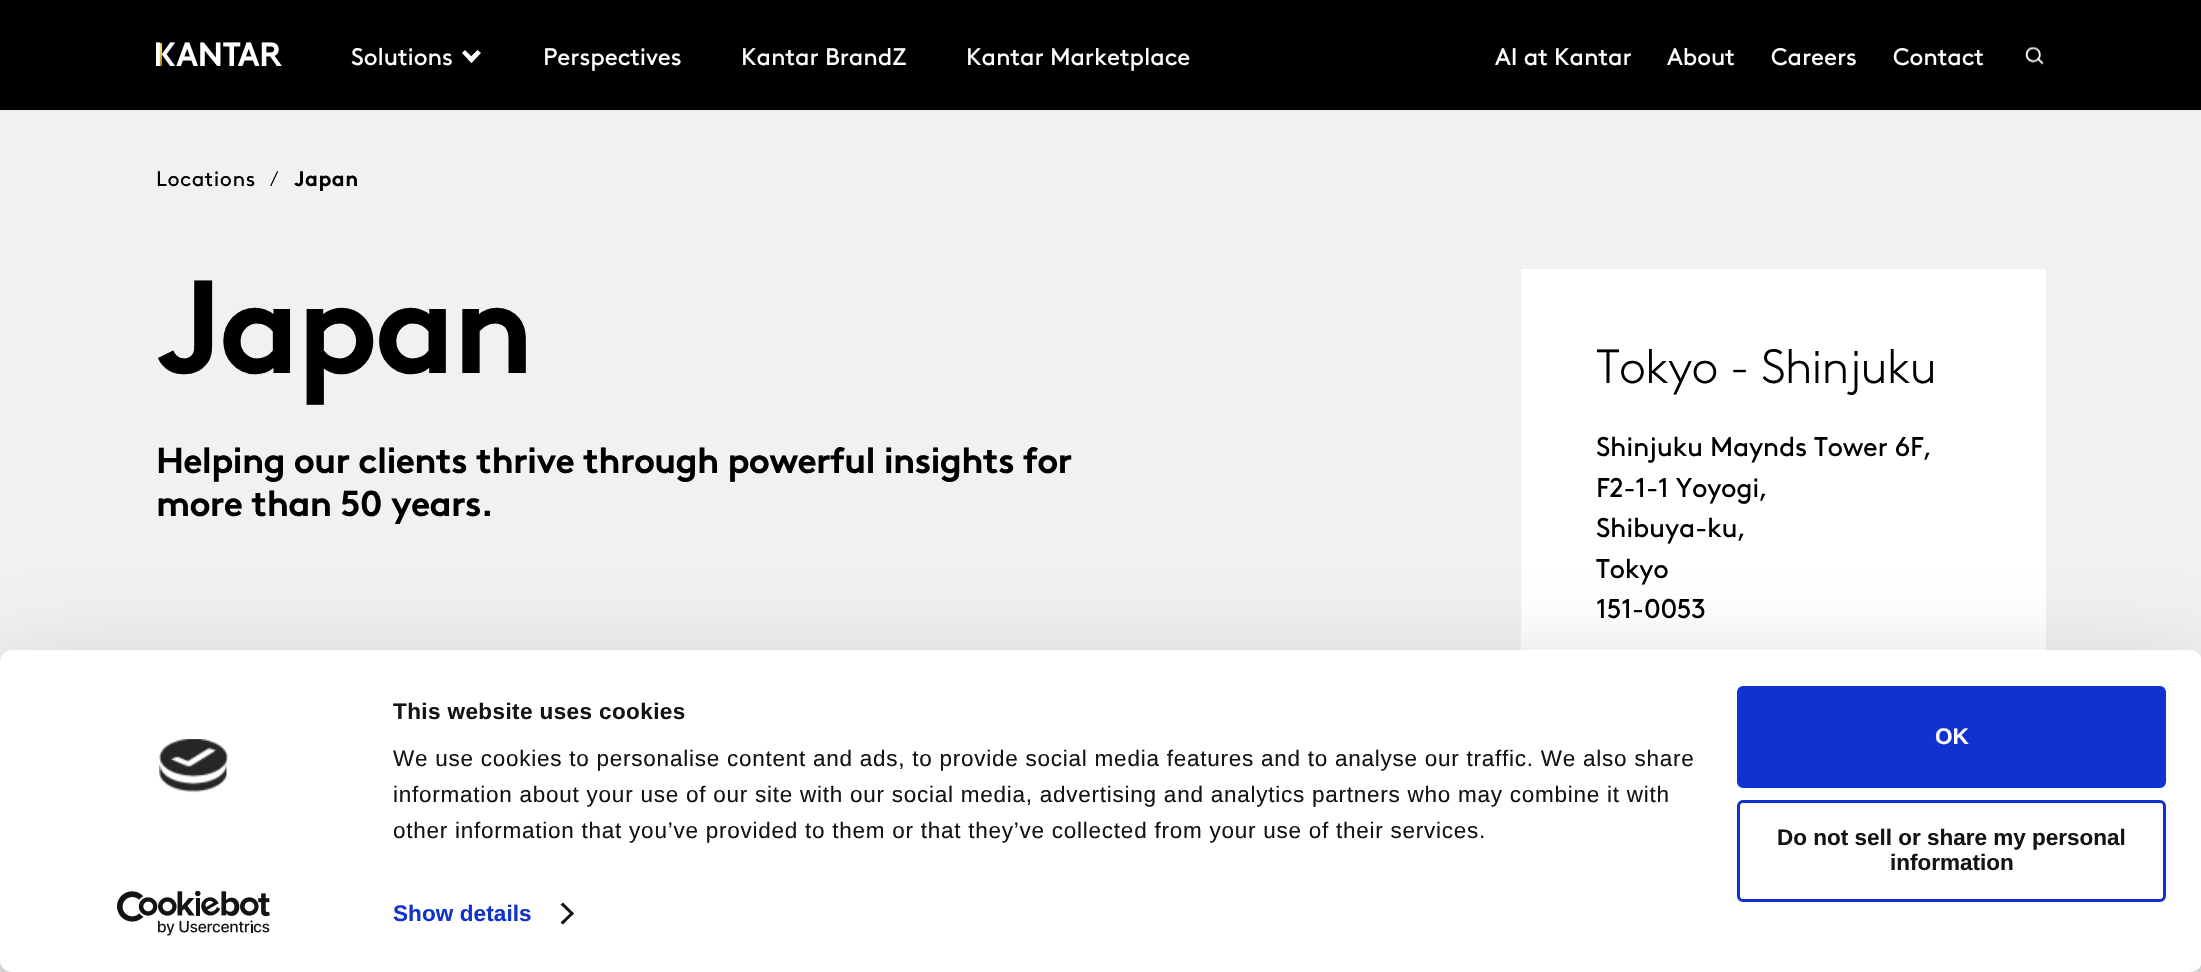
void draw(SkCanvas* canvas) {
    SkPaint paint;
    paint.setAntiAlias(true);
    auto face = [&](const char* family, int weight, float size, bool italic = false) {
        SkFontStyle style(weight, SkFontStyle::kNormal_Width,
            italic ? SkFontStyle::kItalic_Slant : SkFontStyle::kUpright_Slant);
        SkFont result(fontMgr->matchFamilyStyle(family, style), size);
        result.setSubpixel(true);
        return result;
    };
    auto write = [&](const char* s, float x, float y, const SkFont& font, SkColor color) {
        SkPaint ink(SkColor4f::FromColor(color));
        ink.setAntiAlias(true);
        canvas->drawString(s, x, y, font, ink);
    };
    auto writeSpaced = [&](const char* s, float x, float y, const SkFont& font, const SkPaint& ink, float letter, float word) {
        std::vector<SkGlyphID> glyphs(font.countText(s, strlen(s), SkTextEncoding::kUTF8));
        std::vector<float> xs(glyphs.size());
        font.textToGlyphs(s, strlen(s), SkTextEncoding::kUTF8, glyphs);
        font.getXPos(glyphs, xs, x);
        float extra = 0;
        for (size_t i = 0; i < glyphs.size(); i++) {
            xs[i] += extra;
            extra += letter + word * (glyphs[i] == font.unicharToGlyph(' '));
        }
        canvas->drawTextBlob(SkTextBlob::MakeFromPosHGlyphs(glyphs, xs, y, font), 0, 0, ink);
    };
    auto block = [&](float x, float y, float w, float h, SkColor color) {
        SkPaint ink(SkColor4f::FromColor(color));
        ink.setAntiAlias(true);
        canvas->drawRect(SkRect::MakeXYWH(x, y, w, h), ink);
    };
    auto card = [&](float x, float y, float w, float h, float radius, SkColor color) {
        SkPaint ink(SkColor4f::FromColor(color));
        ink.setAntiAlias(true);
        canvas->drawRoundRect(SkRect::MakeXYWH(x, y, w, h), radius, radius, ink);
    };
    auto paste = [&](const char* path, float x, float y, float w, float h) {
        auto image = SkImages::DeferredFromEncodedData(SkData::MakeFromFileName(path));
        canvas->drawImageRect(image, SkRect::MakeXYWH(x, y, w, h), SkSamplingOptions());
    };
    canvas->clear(SkColorSetRGB(242, 241, 239));
    block(0, 0, 2201, 110, SK_ColorBLACK);
    paste("pic1.png", 156, 42, 126, 24);
    auto kFont1 = face("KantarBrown", 400, 24);
    paint.setColor(SK_ColorWHITE);
    writeSpaced("Solutions", 351, 65, kFont1, paint, -0.1f, 0);
    canvas->drawPath(SkPathBuilder().moveTo(477.5f, 50).lineTo(481, 53).lineTo(471.5f, 63).lineTo(468, 59.5f).close().detach(), paint);
    canvas->drawPath(SkPathBuilder().moveTo(465, 50).lineTo(474.5f, 59.5f).lineTo(471.5f, 63).lineTo(462, 53).close().detach(), paint);
    writeSpaced("Perspectives", 543, 65, kFont1, paint, -0.1f, 0);
    writeSpaced("Kantar BrandZ", 741, 65, kFont1, paint, -0.1f, 0);
    writeSpaced("Kantar Marketplace", 966, 65, kFont1, paint, -0.1f, 0);
    writeSpaced("AI at Kantar", 1495, 65, kFont1, paint, -0.1f, 0);
    writeSpaced("About", 1667, 65, kFont1, paint, -0.1f, 0);
    writeSpaced("Careers", 1771, 65, kFont1, paint, -0.1f, 0);
    writeSpaced("Contact", 1893, 65, kFont1, paint, -0.1f, 0);
    paste("pic2.png", 2025, 46, 19, 19);
    auto kFont2 = face("KantarBrown", 400, 21);
    paint.setColor(SK_ColorBLACK);
    writeSpaced("Locations", 156, 186, kFont2, paint, 0.5f, 0);
    auto kFont3 = face("KantarBrown", 300, 21);
    writeSpaced("/", 270, 186, kFont3, paint, 0.5f, 0);
    auto kFont4 = face("KantarBrown", 700, 21);
    writeSpaced("Japan", 294, 186, kFont4, paint, 0.5f, 0);
    auto kFont5 = face("KantarBrown", 700, 132);
    writeSpaced("Japan", 156, 373, kFont5, paint, -3.25f, 0);
    auto kFont6 = face("KantarBrown", 700, 36);
    writeSpaced("Helping our clients thrive through powerful insights for", 156, 473, kFont6, paint, -0.75f, 0);
    writeSpaced("more than 50 years.", 156, 516, kFont6, paint, -0.75f, 0);
    block(1521, 269, 525, 381, SK_ColorWHITE);
    auto kFont7 = face("KantarBrown", 300, 48);
    writeSpaced("Tokyo - Shinjuku", 1596, 383, kFont7, paint, -0.9f, 0);
    auto kFont8 = face("KantarBrown", 400, 27);
    writeSpaced("Shinjuku Maynds Tower 6F,", 1596, 456, kFont8, paint, -0.3f, 0);
    writeSpaced("F2-1-1 Yoyogi,", 1596, 497, kFont8, paint, -0.3f, 0);
    writeSpaced("Shibuya-ku,", 1596, 537, kFont8, paint, -0.3f, 0);
    writeSpaced("Tokyo", 1596, 578, kFont8, paint, -0.3f, 0);
    writeSpaced("151-0053", 1596, 618, kFont8, paint, -0.3f, 0);
    paint.setColor(SkColorSetARGB(77, 0, 0, 0));
    paint.setMaskFilter(SkMaskFilter::MakeBlur(kNormal_SkBlurStyle, 52.5f));
    canvas->drawRoundRect(SkRect::MakeXYWH(0, 695, 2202, 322), 12, 12, paint);
    paint.setMaskFilter(nullptr);
    card(0, 650, 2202, 322, 12, SK_ColorWHITE);
    paste("pic3.png", 159, 739, 69, 54);
    paste("pic4.png", 117, 891, 153, 45);
    auto kFont9 = face("Liberation Sans", 700, 22.5f);
    paint.setColor(SkColorSetRGB(20, 20, 20));
    writeSpaced("This website uses cookies", 393, 719, kFont9, paint, 0.4f, 0);
    auto kFont10 = face("Liberation Sans", 400, 22.5f);
    writeSpaced("We use cookies to personalise content and ads, to provide social media features and to analyse our traffic. We also share", 393, 766, kFont10, paint, 0.75f, 0);
    writeSpaced("information about your use of our site with our social media, advertising and analytics partners who may combine it with", 393, 802, kFont10, paint, 0.75f, 0);
    writeSpaced("other information that you’ve provided to them or that they’ve collected from your use of their services.", 393, 838, kFont10, paint, 0.75f, 0);
    paint.setColor(SkColorSetRGB(16, 50, 207));
    writeSpaced("Show details", 393, 921, kFont9, paint, 0.1f, 0);
    paint.setColor(SkColorSetRGB(20, 20, 20));
    canvas->drawPath(SkPathBuilder().moveTo(563, 902.5f).lineTo(574, 913.5f).lineTo(572, 915.5f).lineTo(560.5f, 904.5f).close().detach(), paint);
    canvas->drawPath(SkPathBuilder().moveTo(572, 911.5f).lineTo(574, 913.5f).lineTo(563, 924.5f).lineTo(560.5f, 922.5f).close().detach(), paint);
    paint.setColor(SkColorSetRGB(16, 50, 207));
    canvas->drawRoundRect(SkRect::MakeXYWH(1738.5f, 687.5f, 426, 99), 4.5f, 4.5f, paint);
    paint.setStyle(SkPaint::kStroke_Style);
    paint.setStrokeWidth(3);
    canvas->drawRoundRect(SkRect::MakeXYWH(1738.5f, 687.5f, 426, 99), 4.5f, 4.5f, paint);
    write("OK", 1935, 744, kFont9, SK_ColorWHITE);
    canvas->drawRoundRect(SkRect::MakeXYWH(1738.5f, 801.5f, 426, 99), 4.5f, 4.5f, paint);
    write("Do not sell or share my personal", 1777, 845, kFont9, SkColorSetRGB(20, 20, 20));
    write("information", 1890, 870, kFont9, SkColorSetRGB(20, 20, 20));
}
